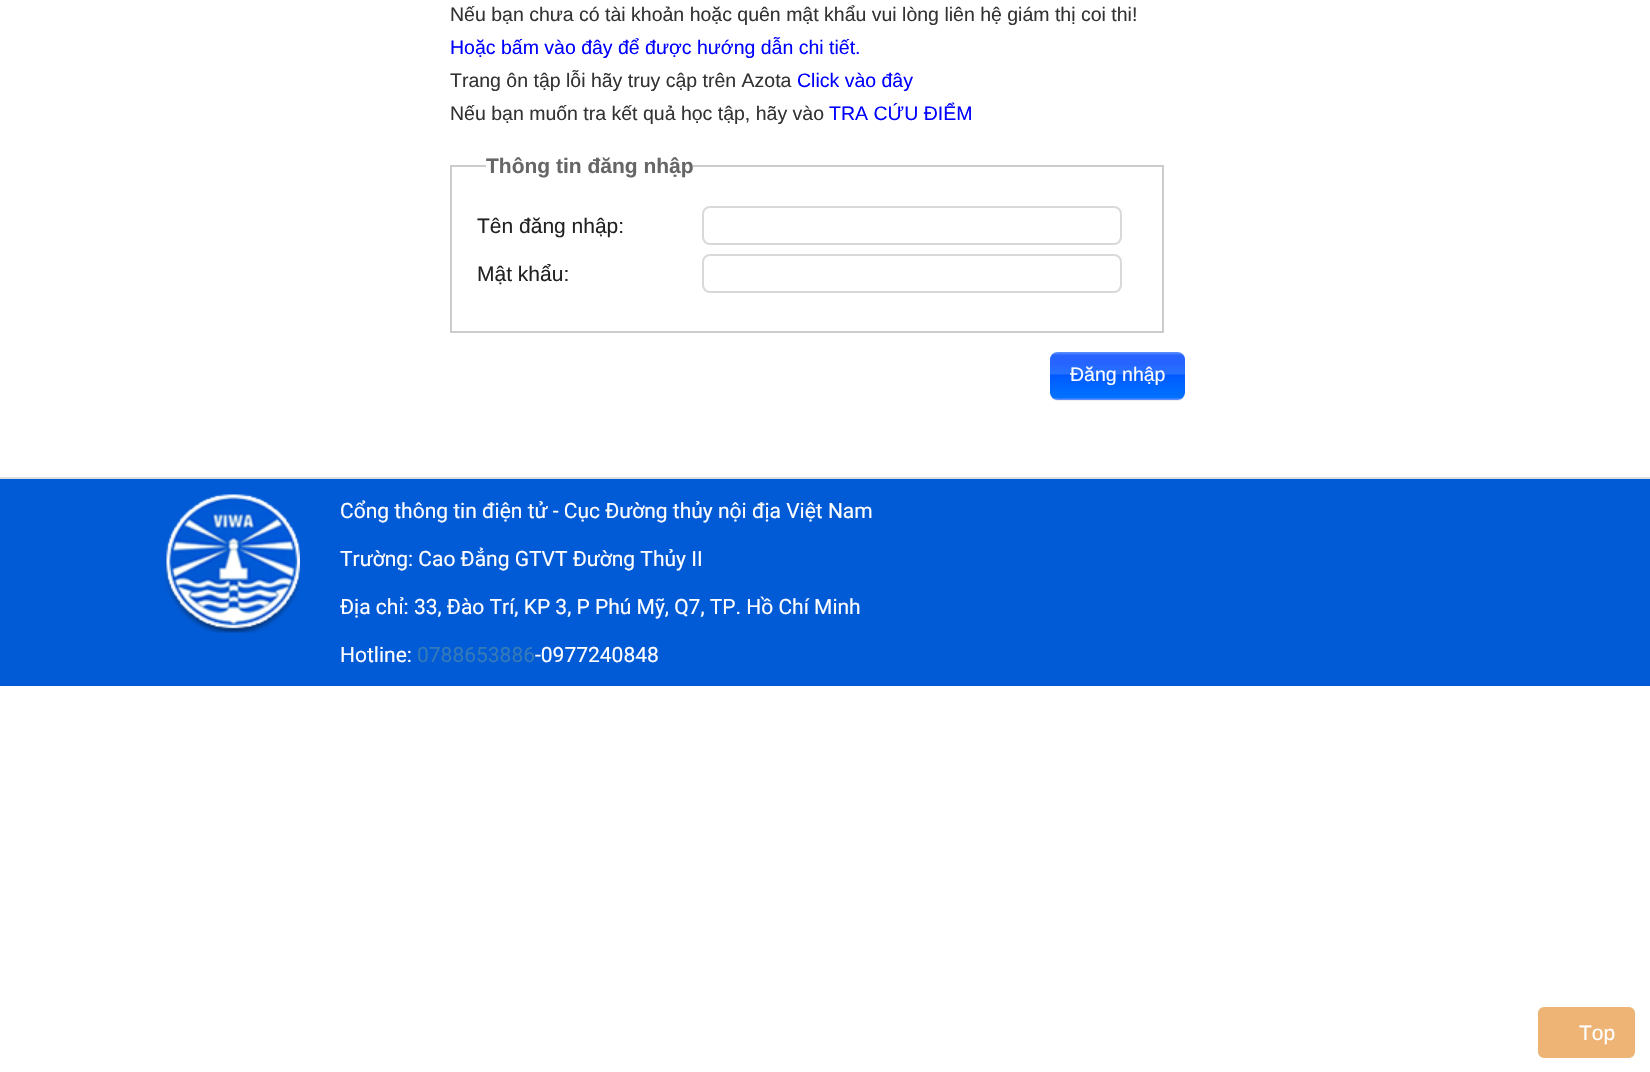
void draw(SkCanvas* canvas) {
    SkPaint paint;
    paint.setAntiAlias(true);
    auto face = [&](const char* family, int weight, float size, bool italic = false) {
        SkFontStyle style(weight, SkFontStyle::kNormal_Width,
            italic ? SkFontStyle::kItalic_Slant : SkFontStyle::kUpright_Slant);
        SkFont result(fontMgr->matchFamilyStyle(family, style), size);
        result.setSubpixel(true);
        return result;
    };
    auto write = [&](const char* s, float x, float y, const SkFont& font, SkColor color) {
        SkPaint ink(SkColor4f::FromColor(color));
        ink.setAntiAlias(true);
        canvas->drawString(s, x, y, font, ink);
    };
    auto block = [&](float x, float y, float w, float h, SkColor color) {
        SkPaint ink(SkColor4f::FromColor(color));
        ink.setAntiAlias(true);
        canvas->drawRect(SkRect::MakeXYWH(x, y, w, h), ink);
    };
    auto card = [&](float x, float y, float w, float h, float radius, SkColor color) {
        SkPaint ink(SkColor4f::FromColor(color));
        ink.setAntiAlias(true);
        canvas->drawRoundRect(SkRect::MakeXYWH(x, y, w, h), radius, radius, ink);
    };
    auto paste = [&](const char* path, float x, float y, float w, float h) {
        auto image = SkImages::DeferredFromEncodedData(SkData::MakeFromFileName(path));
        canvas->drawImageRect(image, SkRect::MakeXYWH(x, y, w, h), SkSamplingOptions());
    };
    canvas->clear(SK_ColorWHITE);
    auto kFont1 = face("Liberation Sans", 400, 19.5f);
    write("Nếu bạn chưa có tài khoản hoặc quên mật khẩu vui lòng liên hệ giám thị coi thi!", 450, 21, kFont1, SkColorSetRGB(51, 51, 51));
    write("Hoặc bấm vào đây để được hướng dẫn chi tiết.", 450, 54, kFont1, SkColorSetRGB(0, 0, 255));
    write("Trang ôn tập lỗi hãy truy cập trên Azota", 450, 87, kFont1, SkColorSetRGB(51, 51, 51));
    write("Click vào đây", 797, 87, kFont1, SkColorSetRGB(0, 0, 255));
    write("Nếu bạn muốn tra kết quả học tập, hãy vào", 450, 120, kFont1, SkColorSetRGB(51, 51, 51));
    write("TRA CỨU ĐIỂM", 829, 120, kFont1, SkColorSetRGB(0, 0, 255));
    paint.setStyle(SkPaint::kStroke_Style);
    paint.setStrokeWidth(2);
    paint.setColor(SkColorSetRGB(204, 204, 204));
    canvas->drawRect(SkRect::MakeXYWH(451, 166, 712, 166), paint);
    block(486, 165, 207, 2, SK_ColorWHITE);
    auto kFont2 = face("Liberation Sans", 700, 21);
    write("Thông tin đăng nhập", 486, 173, kFont2, SkColorSetRGB(102, 102, 102));
    auto kFont3 = face("Liberation Sans", 400, 21);
    write("Tên đăng nhập:", 477, 233, kFont3, SkColorSetRGB(34, 34, 34));
    paint.setColor(SkColorSetRGB(217, 217, 217));
    canvas->drawRoundRect(SkRect::MakeXYWH(703, 207, 418, 37), 7, 7, paint);
    write("Mật khẩu:", 477, 281, kFont3, SkColorSetRGB(34, 34, 34));
    canvas->drawRoundRect(SkRect::MakeXYWH(703, 255, 418, 37), 7, 7, paint);
    card(1050, 353, 135, 48, 8, SkColorSetRGB(239, 239, 239));
    paste("pic1.png", 1050, 352, 135, 48);
    write("Đăng nhập", 1070, 381, kFont1, SK_ColorWHITE);
    block(0, 479, 1650, 207, SkColorSetRGB(2, 91, 214));
    block(0, 477, 1650, 2, SkColorSetRGB(222, 222, 222));
    paste("pic2.png", 165, 494, 135, 139);
    auto kFont4 = face("Roboto", 400, 21);
    write("Cổng thông tin điện tử - Cục Đường thủy nội địa Việt Nam", 340, 518, kFont4, SK_ColorWHITE);
    write("Trường: Cao Đẳng GTVT Đường Thủy II", 340, 566, kFont4, SK_ColorWHITE);
    write("Địa chỉ: 33, Đào Trí, KP 3, P Phú Mỹ, Q7, TP. Hồ Chí Minh", 340, 614, kFont4, SK_ColorWHITE);
    write("Hotline:", 340, 662, kFont4, SK_ColorWHITE);
    write("0788653886", 417, 662, kFont4, SkColorSetRGB(51, 122, 183));
    write("-0977240848", 535, 662, kFont4, SK_ColorWHITE);
    paint.setStyle(SkPaint::kFill_Style);
    paint.setColor(SkColorSetRGB(237, 180, 117));
    canvas->drawRoundRect(SkRect::MakeXYWH(1539, 1008, 95, 49), 5, 5, paint);
    paint.setStyle(SkPaint::kStroke_Style);
    canvas->drawRoundRect(SkRect::MakeXYWH(1539, 1008, 95, 49), 5, 5, paint);
    write("Top", 1579, 1040, kFont3, SK_ColorWHITE);
}
